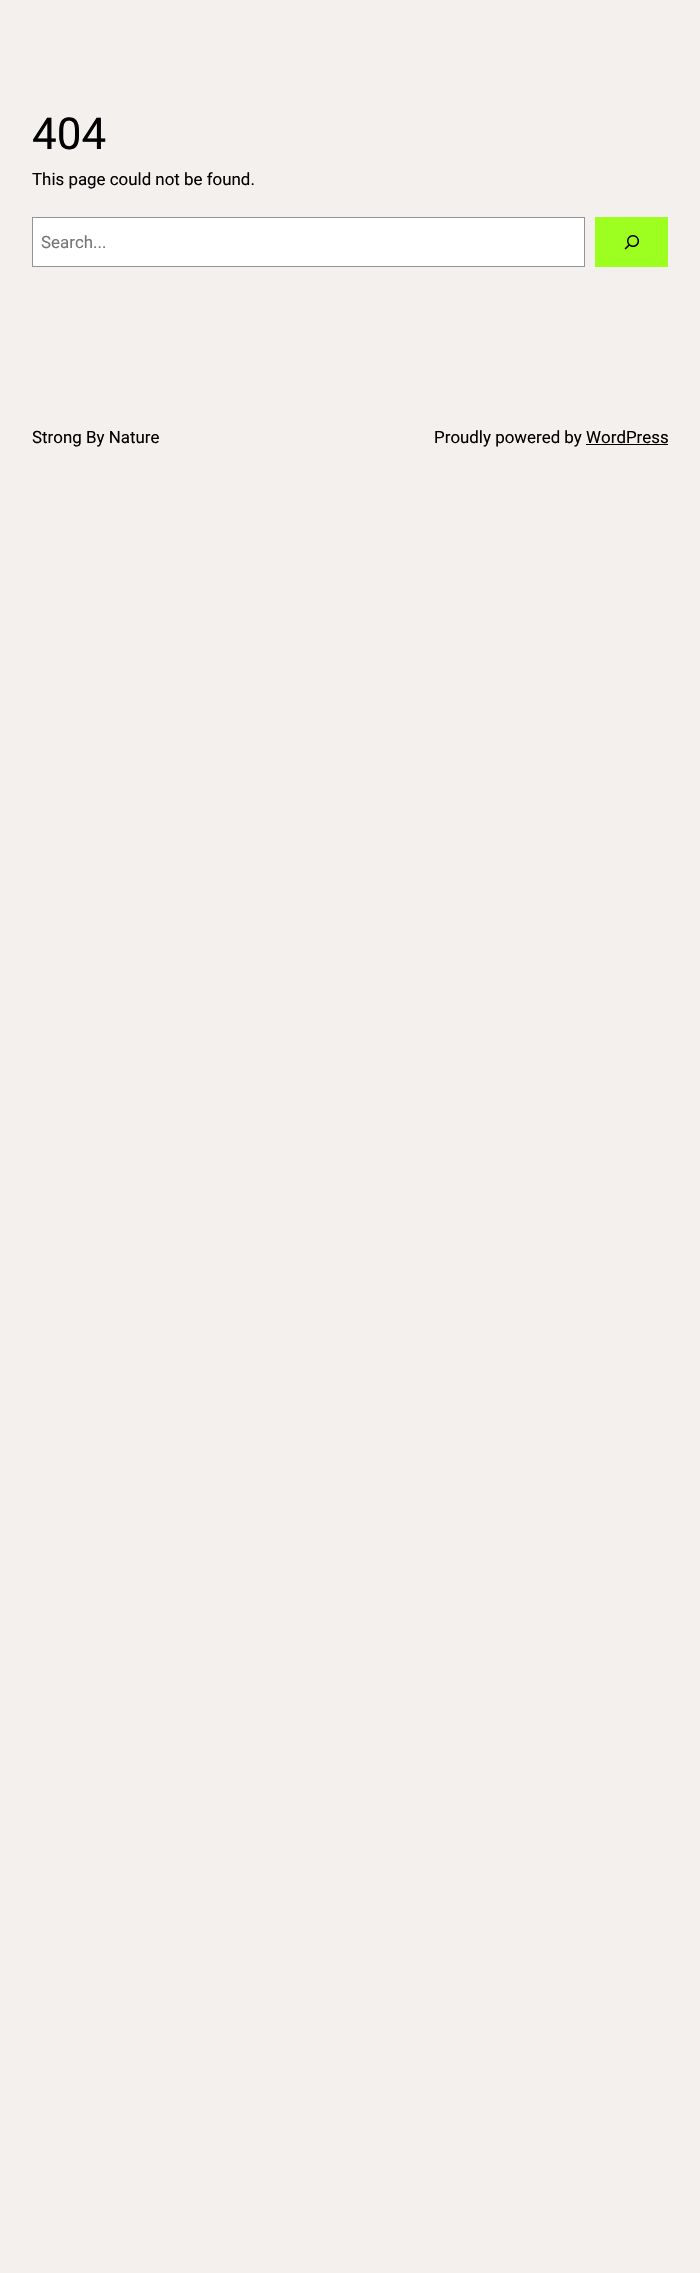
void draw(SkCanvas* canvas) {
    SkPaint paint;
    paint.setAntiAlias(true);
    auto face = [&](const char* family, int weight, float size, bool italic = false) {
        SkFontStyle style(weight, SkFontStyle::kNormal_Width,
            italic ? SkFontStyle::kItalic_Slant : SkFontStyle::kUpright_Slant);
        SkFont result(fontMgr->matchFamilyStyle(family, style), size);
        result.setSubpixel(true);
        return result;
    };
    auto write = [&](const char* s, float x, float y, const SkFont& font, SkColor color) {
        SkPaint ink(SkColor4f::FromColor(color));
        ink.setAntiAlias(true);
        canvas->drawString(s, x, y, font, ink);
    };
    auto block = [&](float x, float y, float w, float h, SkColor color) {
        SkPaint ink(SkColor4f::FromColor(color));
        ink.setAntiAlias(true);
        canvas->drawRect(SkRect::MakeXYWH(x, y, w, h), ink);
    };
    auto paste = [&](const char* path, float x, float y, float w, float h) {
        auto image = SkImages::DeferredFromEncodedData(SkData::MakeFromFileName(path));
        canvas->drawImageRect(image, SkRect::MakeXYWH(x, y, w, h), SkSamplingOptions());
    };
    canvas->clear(SkColorSetRGB(244, 240, 238));
    auto kFont1 = face("Roboto", 400, 44);
    write("404", 32, 149, kFont1, SK_ColorBLACK);
    auto kFont2 = face("Roboto", 400, 16.9f);
    write("This page could not be found.", 32, 185, kFont2, SK_ColorBLACK);
    paint.setColor(SK_ColorWHITE);
    canvas->drawRect(SkRect::MakeXYWH(32.5f, 217.5f, 552, 49), paint);
    paint.setStyle(SkPaint::kStroke_Style);
    paint.setStrokeWidth(1);
    paint.setColor(SkColorSetRGB(148, 148, 148));
    canvas->drawRect(SkRect::MakeXYWH(32.5f, 217.5f, 552, 49), paint);
    write("Search...", 41, 248, kFont2, SkColorSetRGB(117, 117, 117));
    block(595, 217, 73, 50, SkColorSetRGB(157, 255, 32));
    paste("pic1.png", 624, 235, 16, 15);
    write("Strong By Nature", 32, 443, kFont2, SK_ColorBLACK);
    write("Proudly powered by WordPress", 434, 443, kFont2, SK_ColorBLACK);
    block(586, 444, 82, 1, SK_ColorBLACK);
}
